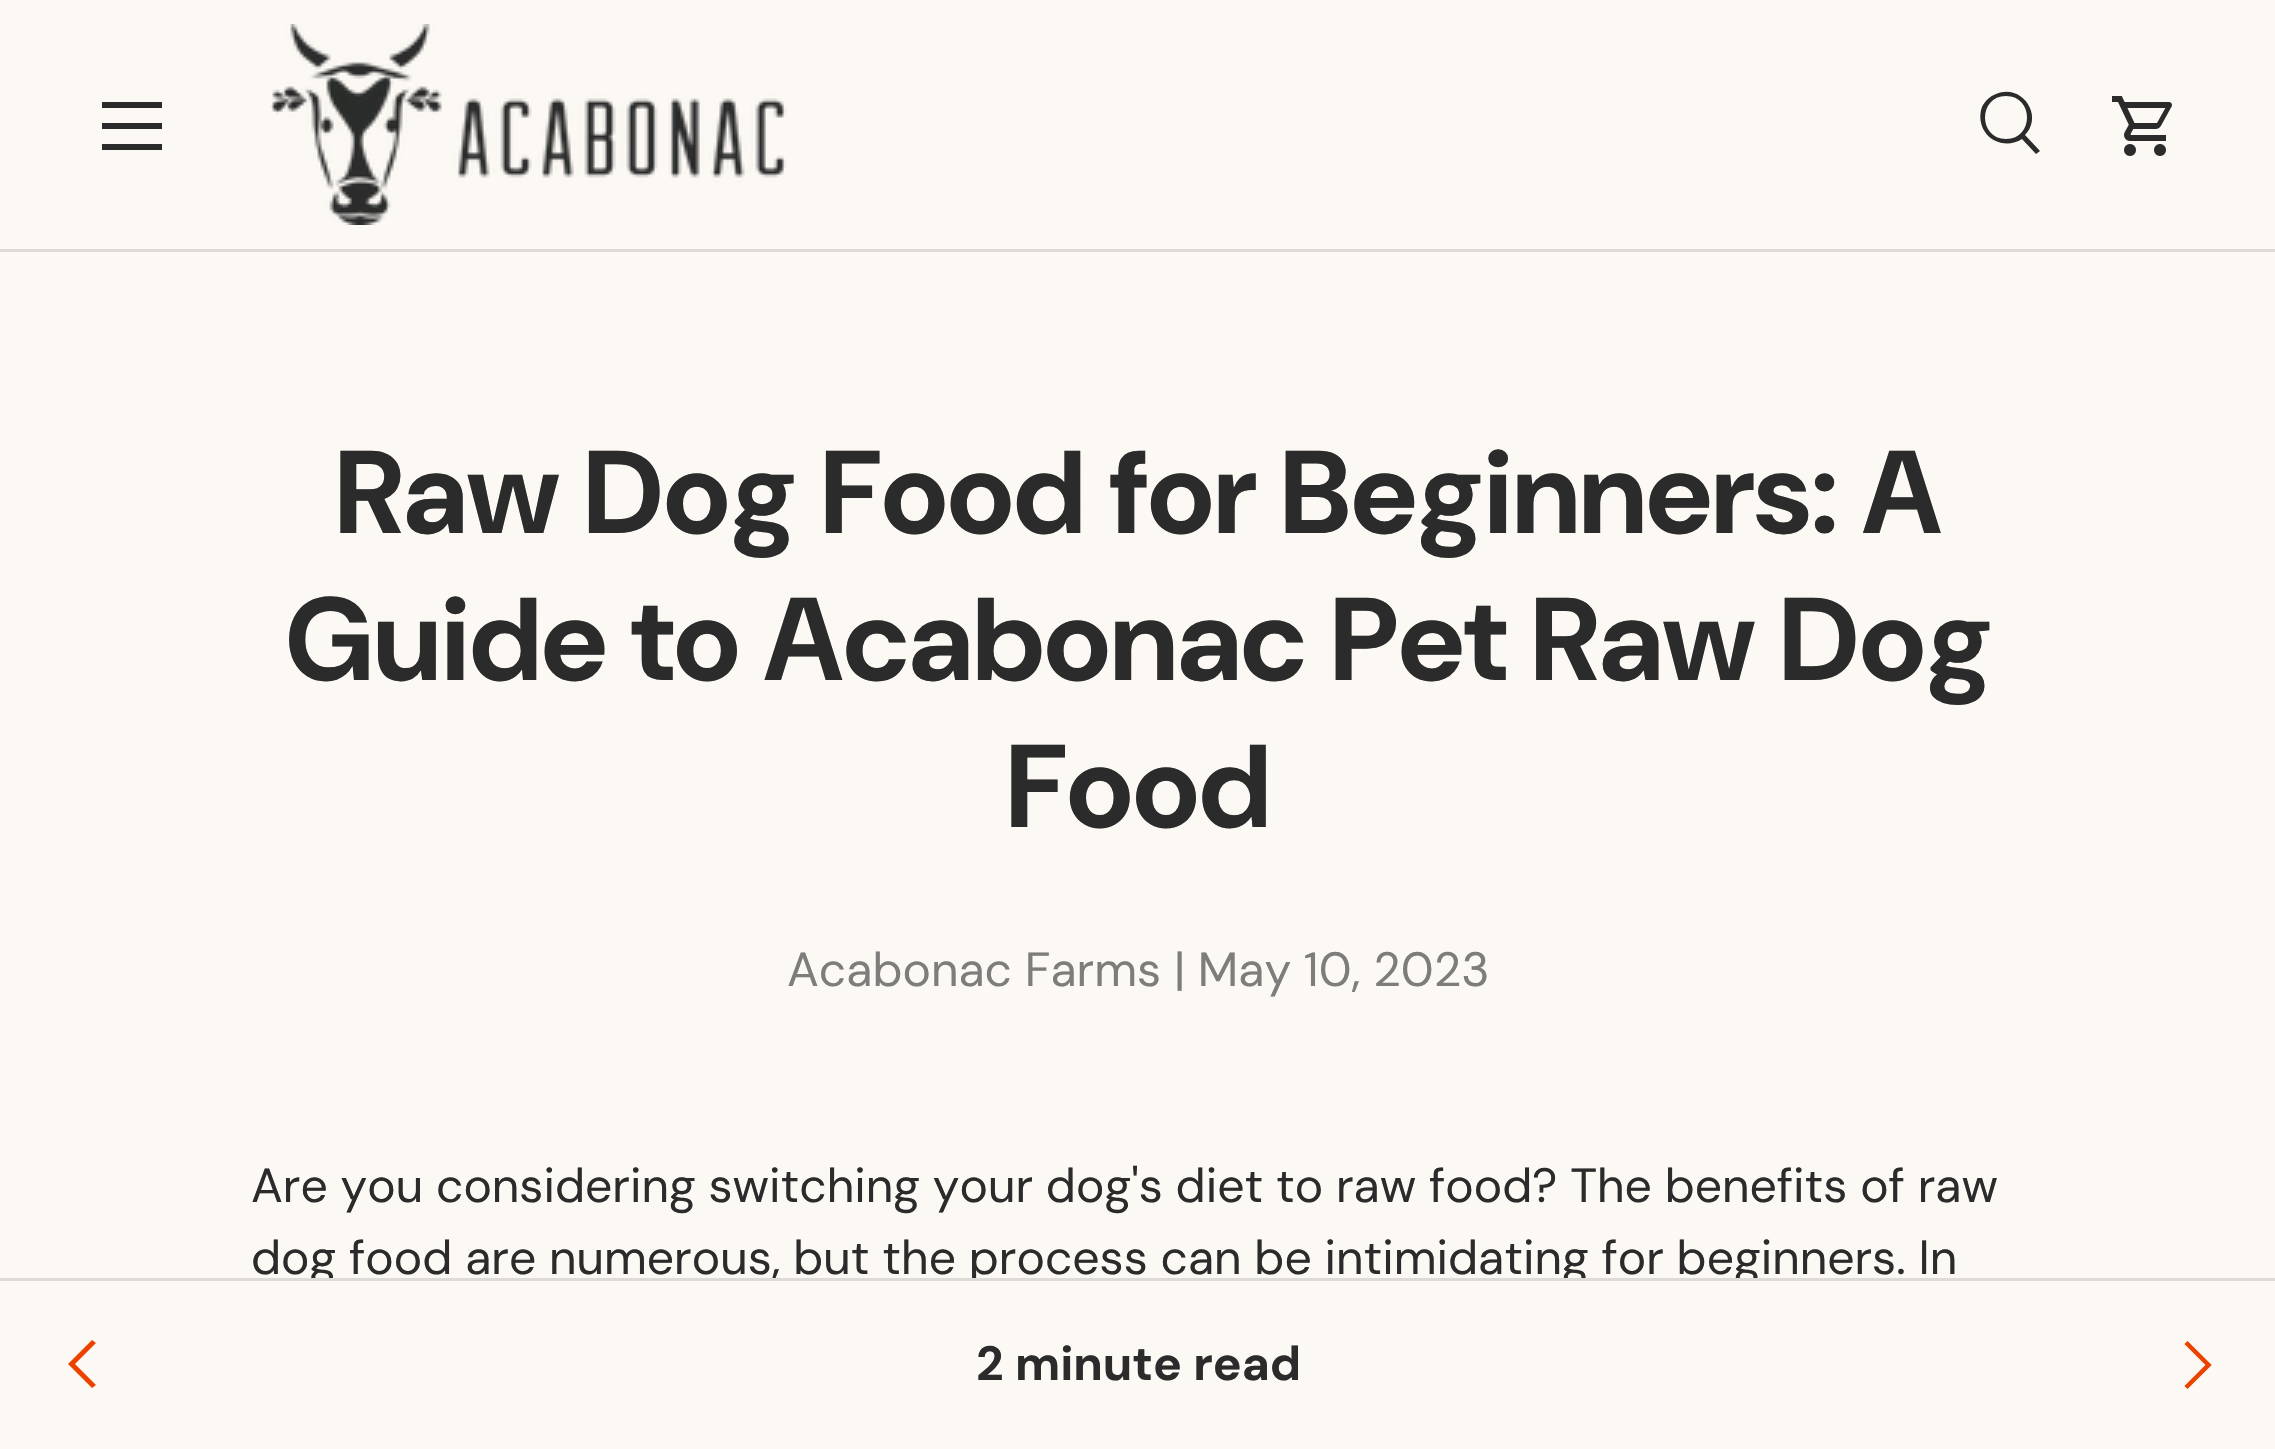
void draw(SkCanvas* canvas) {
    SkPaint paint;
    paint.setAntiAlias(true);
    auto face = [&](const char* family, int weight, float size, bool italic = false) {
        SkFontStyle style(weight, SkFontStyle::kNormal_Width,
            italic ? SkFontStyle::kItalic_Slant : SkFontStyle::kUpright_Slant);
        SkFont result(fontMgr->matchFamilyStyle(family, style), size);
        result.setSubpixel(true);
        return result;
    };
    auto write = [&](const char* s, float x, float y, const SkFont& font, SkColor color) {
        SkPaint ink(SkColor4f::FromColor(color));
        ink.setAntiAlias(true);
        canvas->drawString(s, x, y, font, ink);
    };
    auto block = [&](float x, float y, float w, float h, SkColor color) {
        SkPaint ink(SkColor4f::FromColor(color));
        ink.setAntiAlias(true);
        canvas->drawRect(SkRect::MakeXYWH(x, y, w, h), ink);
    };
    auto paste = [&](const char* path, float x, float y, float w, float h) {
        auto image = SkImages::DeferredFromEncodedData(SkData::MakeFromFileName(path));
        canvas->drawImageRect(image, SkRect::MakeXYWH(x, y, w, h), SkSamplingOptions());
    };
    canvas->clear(SkColorSetRGB(252, 249, 245));
    block(0, 249, 2275, 3, SkColorSetRGB(221, 218, 215));
    block(102, 102, 60, 6, SkColorSetRGB(42, 43, 42));
    block(102, 144, 60, 6, SkColorSetRGB(42, 43, 42));
    block(102, 123, 60, 6, SkColorSetRGB(42, 43, 42));
    paste("pic1.png", 270, 24, 517, 201);
    paint.setColor(SkColorSetRGB(42, 43, 42));
    canvas->drawPath(SkPathBuilder().moveTo(2025, 135).lineTo(2040, 151).lineTo(2036, 154).lineTo(2022, 139).cubicTo(2010, 147, 1993, 144, 1985, 132).cubicTo(1980, 125, 1979, 115, 1982, 107).cubicTo(1985, 101, 1990, 96, 1996, 94).cubicTo(2022, 83, 2044, 116, 2025, 135).close().moveTo(2006, 139).cubicTo(2034, 139, 2034, 96, 2006, 96).cubicTo(1978, 96, 1978, 139, 2006, 139).close().detach(), paint);
    paste("pic2.png", 2112, 96, 60, 60);
    auto kFont1 = face("DM Sans", 700, 117.5f);
    write("Raw Dog Food for Beginners: A", 335, 533, kFont1, SkColorSetRGB(42, 43, 42));
    write("Guide to Acabonac Pet Raw Dog", 285, 680, kFont1, SkColorSetRGB(42, 43, 42));
    write("Food", 1006, 827, kFont1, SkColorSetRGB(42, 43, 42));
    auto kFont2 = face("DM Sans", 400, 48);
    write("Acabonac Farms | May 10, 2023", 787, 986, kFont2, SkColorSetRGB(126, 125, 123));
    write("Are you considering switching your dog's diet to raw food? The benefits of raw", 251, 1202, kFont2, SkColorSetRGB(42, 43, 42));
    write("dog food are numerous, but the process can be intimidating for beginners. In", 251, 1274, kFont2, SkColorSetRGB(42, 43, 42));
    block(311, 1281, 1445, 5, SkColorSetRGB(252, 249, 245));
    block(0, 1278, 2275, 3, SkColorSetRGB(221, 218, 215));
    paint.setColor(SkColorSetRGB(235, 66, 0));
    canvas->drawPath(SkPathBuilder().moveTo(68, 1364).lineTo(92, 1340).lineTo(96, 1343).lineTo(75, 1364).lineTo(96, 1385).lineTo(92, 1388).close().detach(), paint);
    auto kFont3 = face("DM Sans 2", 700, 48);
    write("2 minute read", 976, 1380, kFont3, SkColorSetRGB(42, 43, 42));
    paint.setStyle(SkPaint::kStroke_Style);
    paint.setStrokeWidth(4.5f);
    canvas->drawPath(SkPathBuilder().moveTo(2186, 1342.5f).lineTo(2208.5f, 1365).lineTo(2186, 1387.5f).detach(), paint);
}
